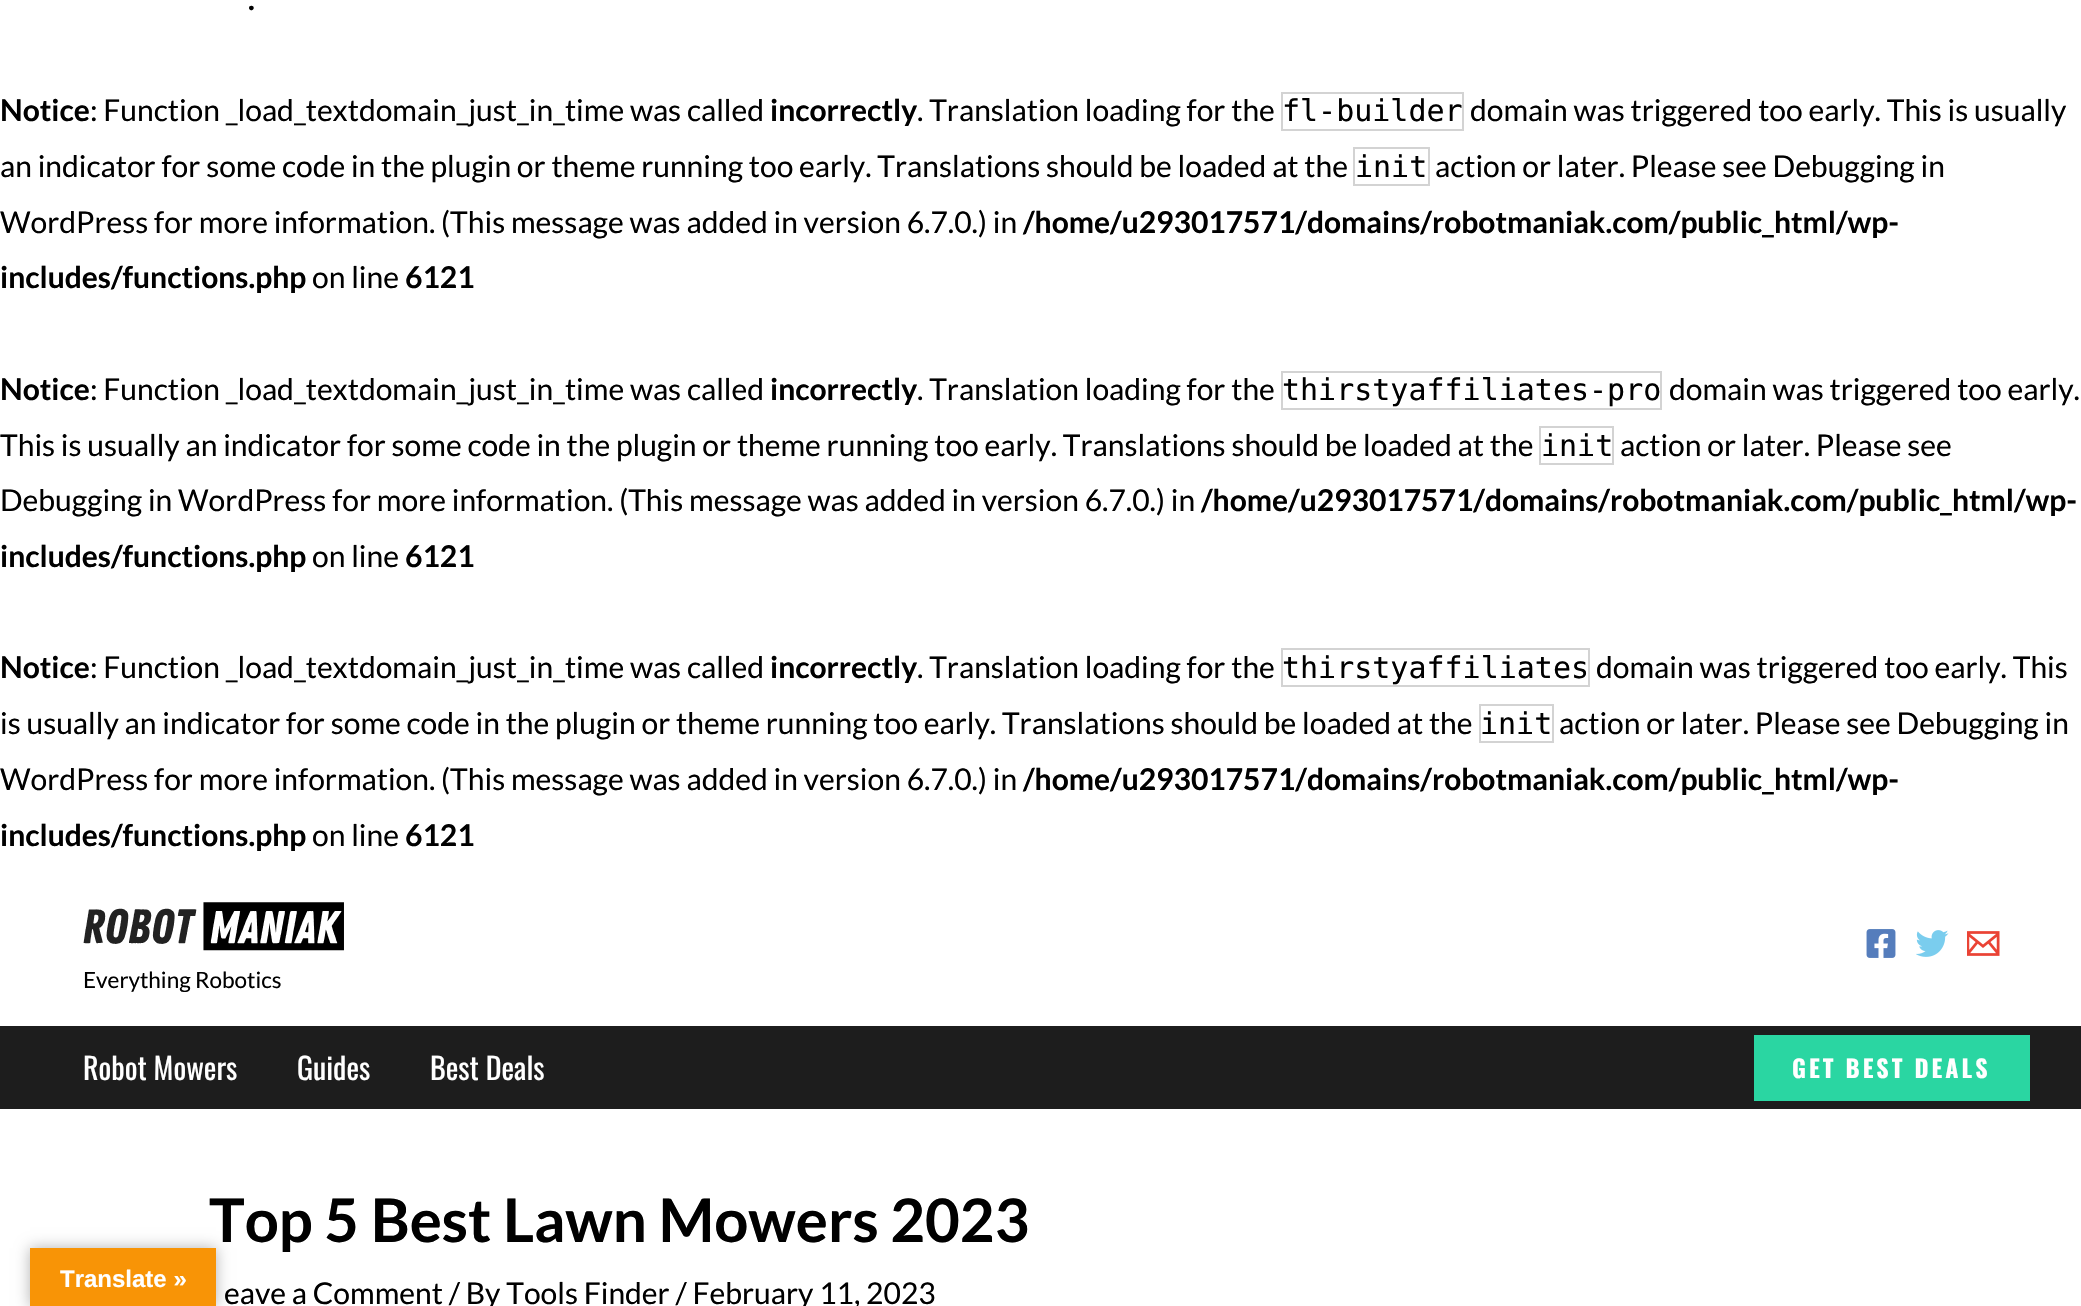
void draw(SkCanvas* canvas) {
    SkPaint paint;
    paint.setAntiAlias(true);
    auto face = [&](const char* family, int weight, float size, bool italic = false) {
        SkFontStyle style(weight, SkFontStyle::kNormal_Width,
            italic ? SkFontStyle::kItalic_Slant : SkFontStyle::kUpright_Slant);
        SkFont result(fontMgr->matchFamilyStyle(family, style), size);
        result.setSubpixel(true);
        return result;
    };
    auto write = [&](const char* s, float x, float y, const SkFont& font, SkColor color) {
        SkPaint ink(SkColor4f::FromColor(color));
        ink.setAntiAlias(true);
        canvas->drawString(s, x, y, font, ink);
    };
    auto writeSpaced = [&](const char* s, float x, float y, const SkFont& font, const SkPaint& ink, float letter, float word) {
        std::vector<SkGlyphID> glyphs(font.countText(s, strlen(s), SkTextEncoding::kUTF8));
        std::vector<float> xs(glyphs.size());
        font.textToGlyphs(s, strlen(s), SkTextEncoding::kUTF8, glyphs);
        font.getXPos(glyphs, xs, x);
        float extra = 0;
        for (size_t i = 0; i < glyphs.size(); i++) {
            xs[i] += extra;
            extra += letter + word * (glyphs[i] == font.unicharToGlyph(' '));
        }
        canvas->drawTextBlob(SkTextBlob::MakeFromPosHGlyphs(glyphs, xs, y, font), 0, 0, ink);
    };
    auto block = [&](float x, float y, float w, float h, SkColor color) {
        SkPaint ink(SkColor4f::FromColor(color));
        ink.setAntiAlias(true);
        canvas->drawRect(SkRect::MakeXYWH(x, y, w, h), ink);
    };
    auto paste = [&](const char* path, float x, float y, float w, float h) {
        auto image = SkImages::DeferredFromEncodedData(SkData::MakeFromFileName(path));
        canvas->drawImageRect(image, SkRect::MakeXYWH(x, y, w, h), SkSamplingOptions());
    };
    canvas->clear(SK_ColorWHITE);
    auto kFont1 = face("Lato", 700, 30);
    write(".", 248, 10, kFont1, SK_ColorBLACK);
    write("Notice", 0, 121, kFont1, SK_ColorBLACK);
    auto kFont2 = face("Lato", 400, 30);
    write(": Function _load_textdomain_just_in_time was called", 90, 121, kFont2, SK_ColorBLACK);
    write("incorrectly", 770, 121, kFont1, SK_ColorBLACK);
    write(". Translation loading for the", 917, 121, kFont2, SK_ColorBLACK);
    paint.setStyle(SkPaint::kStroke_Style);
    paint.setStrokeWidth(2);
    paint.setColor(SkColorSetRGB(211, 211, 211));
    canvas->drawRect(SkRect::MakeXYWH(1282, 93, 181, 37), paint);
    auto kFont3 = face("DejaVu Sans Mono", 400, 30);
    write("fl-builder", 1282, 121, kFont3, SK_ColorBLACK);
    write("domain was triggered too early. This is usually", 1470, 121, kFont2, SK_ColorBLACK);
    write("an indicator for some code in the plugin or theme running too early. Translations should be loaded at the", 0, 177, kFont2, SK_ColorBLACK);
    canvas->drawRect(SkRect::MakeXYWH(1354, 148, 75, 37), paint);
    write("init", 1355, 177, kFont3, SK_ColorBLACK);
    write("action or later. Please see Debugging in", 1435, 177, kFont2, SK_ColorBLACK);
    write("WordPress for more information. (This message was added in version 6.7.0.) in", 0, 233, kFont2, SK_ColorBLACK);
    write("/home/u293017571/domains/robotmaniak.com/public_html/wp-", 1023, 233, kFont1, SK_ColorBLACK);
    write("includes/functions.php", 0, 288, kFont1, SK_ColorBLACK);
    write("on line", 312, 288, kFont2, SK_ColorBLACK);
    write("6121", 405, 288, kFont1, SK_ColorBLACK);
    write("Notice", 0, 400, kFont1, SK_ColorBLACK);
    write(": Function _load_textdomain_just_in_time was called", 90, 400, kFont2, SK_ColorBLACK);
    write("incorrectly", 770, 400, kFont1, SK_ColorBLACK);
    write(". Translation loading for the", 917, 400, kFont2, SK_ColorBLACK);
    canvas->drawRect(SkRect::MakeXYWH(1282, 372, 379, 37), paint);
    write("thirstyaffiliates-pro", 1282, 400, kFont3, SK_ColorBLACK);
    write("domain was triggered too early.", 1669, 400, kFont2, SK_ColorBLACK);
    write("This is usually an indicator for some code in the plugin or theme running too early. Translations should be loaded at the", 0, 456, kFont2, SK_ColorBLACK);
    canvas->drawRect(SkRect::MakeXYWH(1540, 427, 73, 37), paint);
    write("init", 1541, 456, kFont3, SK_ColorBLACK);
    write("action or later. Please see", 1620, 456, kFont2, SK_ColorBLACK);
    write("Debugging in WordPress for more information. (This message was added in version 6.7.0.) in", 0, 511, kFont2, SK_ColorBLACK);
    write("/home/u293017571/domains/robotmaniak.com/public_html/wp-", 1201, 511, kFont1, SK_ColorBLACK);
    write("includes/functions.php", 0, 567, kFont1, SK_ColorBLACK);
    write("on line", 312, 567, kFont2, SK_ColorBLACK);
    write("6121", 405, 567, kFont1, SK_ColorBLACK);
    write("Notice", 0, 678, kFont1, SK_ColorBLACK);
    write(": Function _load_textdomain_just_in_time was called", 90, 678, kFont2, SK_ColorBLACK);
    write("incorrectly", 770, 678, kFont1, SK_ColorBLACK);
    write(". Translation loading for the", 917, 678, kFont2, SK_ColorBLACK);
    canvas->drawRect(SkRect::MakeXYWH(1282, 649, 307, 37), paint);
    write("thirstyaffiliates", 1282, 678, kFont3, SK_ColorBLACK);
    write("domain was triggered too early. This", 1596, 678, kFont2, SK_ColorBLACK);
    write("is usually an indicator for some code in the plugin or theme running too early. Translations should be loaded at the", 0, 734, kFont2, SK_ColorBLACK);
    canvas->drawRect(SkRect::MakeXYWH(1480, 705, 73, 37), paint);
    write("init", 1480, 734, kFont3, SK_ColorBLACK);
    write("action or later. Please see Debugging in", 1559, 734, kFont2, SK_ColorBLACK);
    write("WordPress for more information. (This message was added in version 6.7.0.) in", 0, 790, kFont2, SK_ColorBLACK);
    write("/home/u293017571/domains/robotmaniak.com/public_html/wp-", 1023, 790, kFont1, SK_ColorBLACK);
    write("includes/functions.php", 0, 846, kFont1, SK_ColorBLACK);
    write("on line", 312, 846, kFont2, SK_ColorBLACK);
    write("6121", 405, 846, kFont1, SK_ColorBLACK);
    paste("pic1.png", 1866, 929, 30, 29);
    paste("pic2.png", 1916, 930, 33, 27);
    paste("pic3.png", 1967, 931, 33, 25);
    paste("pic4.png", 83, 902, 261, 49);
    auto kFont4 = face("Lato", 400, 22.5f);
    write("Everything Robotics", 83, 988, kFont4, SK_ColorBLACK);
    block(0, 1026, 2081, 83, SkColorSetRGB(29, 29, 29));
    auto kFont5 = face("Oswald", 400, 30);
    write("Robot Mowers", 83, 1080, kFont5, SK_ColorWHITE);
    write("Guides", 297, 1080, kFont5, SK_ColorWHITE);
    write("Best Deals", 430, 1080, kFont5, SK_ColorWHITE);
    block(1754, 1035, 276, 66, SkColorSetRGB(42, 214, 162));
    auto kFont6 = face("Oswald", 700, 24);
    paint.setStyle(SkPaint::kFill_Style);
    paint.setColor(SK_ColorWHITE);
    writeSpaced("GET BEST DEALS", 1792, 1078, kFont6, paint, 3, 0);
    auto kFont7 = face("Lato", 700, 60);
    write("Top 5 Best Lawn Mowers 2023", 209, 1242, kFont7, SK_ColorBLACK);
    write("eave a Comment / By Tools Finder / February 11, 2023", 224, 1304, kFont2, SK_ColorBLACK);
    paint.setColor(SkColorSetARGB(77, 0, 0, 0));
    paint.setMaskFilter(SkMaskFilter::MakeBlur(kNormal_SkBlurStyle, 7));
    canvas->drawRect(SkRect::MakeXYWH(30, 1248, 186, 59), paint);
    paint.setMaskFilter(nullptr);
    block(30, 1248, 186, 58, SkColorSetRGB(248, 148, 6));
    auto kFont8 = face("Liberation Sans", 700, 24);
    write("Translate »", 60, 1287, kFont8, SK_ColorWHITE);
}
